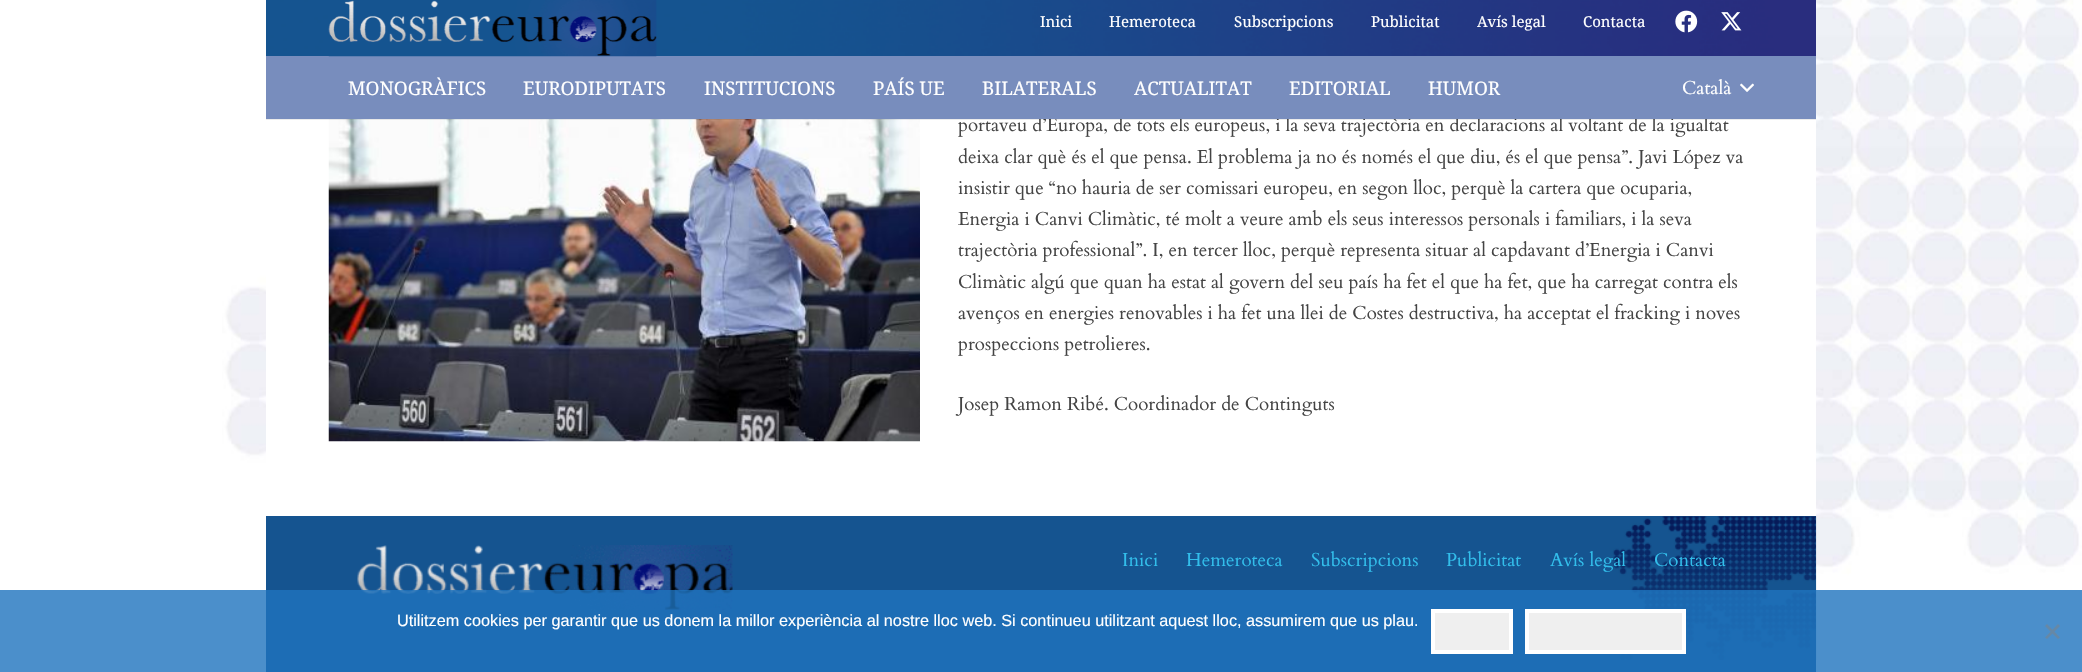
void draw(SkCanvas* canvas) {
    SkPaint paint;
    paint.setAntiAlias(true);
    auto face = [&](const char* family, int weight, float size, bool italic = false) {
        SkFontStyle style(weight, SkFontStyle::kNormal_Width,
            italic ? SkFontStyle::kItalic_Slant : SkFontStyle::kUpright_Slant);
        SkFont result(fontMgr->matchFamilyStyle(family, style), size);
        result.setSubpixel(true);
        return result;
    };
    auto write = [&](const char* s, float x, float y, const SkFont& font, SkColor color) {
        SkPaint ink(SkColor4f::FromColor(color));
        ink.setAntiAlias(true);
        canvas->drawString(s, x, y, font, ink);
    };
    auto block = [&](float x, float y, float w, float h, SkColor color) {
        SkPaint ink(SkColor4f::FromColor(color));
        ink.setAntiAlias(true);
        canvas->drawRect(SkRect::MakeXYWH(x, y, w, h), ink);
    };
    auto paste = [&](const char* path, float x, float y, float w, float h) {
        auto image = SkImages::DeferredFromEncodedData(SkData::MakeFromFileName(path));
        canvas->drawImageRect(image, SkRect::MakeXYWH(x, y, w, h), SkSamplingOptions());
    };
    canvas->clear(SK_ColorWHITE);
    paste("pic1.png", 0, 0, 2082, 672);
    block(266, 119, 1550, 397, SK_ColorWHITE);
    paste("pic2.png", 266, 0, 1550, 56);
    auto kFont1 = face("Cardo", 400, 18.75f);
    write("portaveu d’Europa, de tots els europeus, i la seva trajectòria en declaracions al voltant de la igualtat", 958, 131, kFont1, SkColorSetRGB(68, 68, 68));
    block(266, 56, 1550, 63, SkColorSetRGB(120, 141, 189));
    paste("pic3.png", 328, 0, 329, 57);
    auto kFont2 = face("Noto Serif", 400, 15);
    write("Inici", 1040, 27, kFont2, SK_ColorWHITE);
    write("Hemeroteca", 1109, 27, kFont2, SK_ColorWHITE);
    write("Subscripcions", 1234, 27, kFont2, SK_ColorWHITE);
    write("Publicitat", 1371, 27, kFont2, SK_ColorWHITE);
    write("Avís legal", 1477, 27, kFont2, SK_ColorWHITE);
    write("Contacta", 1583, 27, kFont2, SK_ColorWHITE);
    paste("pic4.png", 1675, 10, 23, 23);
    paste("pic5.png", 1721, 12, 21, 19);
    paste("pic7.png", 328, 119, 592, 323);
    paint.setColor(SkColorSetARGB(20, 0, 0, 0));
    canvas->drawPath(SkPathBuilder().moveTo(266, 58).lineTo(266, 120).lineTo(1816, 120).lineTo(1816, 119).lineTo(266, 119).close().detach(), paint);
    auto kFont3 = face("Noto Serif", 400, 18.75f);
    write("MONOGRÀFICS", 348, 95, kFont3, SK_ColorWHITE);
    write("EURODIPUTATS", 523, 95, kFont3, SK_ColorWHITE);
    write("INSTITUCIONS", 704, 95, kFont3, SK_ColorWHITE);
    write("PAÍS UE", 873, 95, kFont3, SK_ColorWHITE);
    write("BILATERALS", 982, 95, kFont3, SK_ColorWHITE);
    write("ACTUALITAT", 1134, 95, kFont3, SK_ColorWHITE);
    write("EDITORIAL", 1289, 95, kFont3, SK_ColorWHITE);
    write("HUMOR", 1428, 95, kFont3, SK_ColorWHITE);
    write("Català", 1682, 94, kFont1, SK_ColorWHITE);
    paste("pic6.png", 1740, 83, 14, 9);
    write("deixa clar què és el que pensa. El problema ja no és només el que diu, és el que pensa”. Javi López va", 958, 163, kFont1, SkColorSetRGB(68, 68, 68));
    write("insistir que “no hauria de ser comissari europeu, en segon lloc, perquè la cartera que ocuparia,", 958, 194, kFont1, SkColorSetRGB(68, 68, 68));
    write("Energia i Canvi Climàtic, té molt a veure amb els seus interessos personals i familiars, i la seva", 958, 225, kFont1, SkColorSetRGB(68, 68, 68));
    write("trajectòria professional”. I, en tercer lloc, perquè representa situar al capdavant d’Energia i Canvi", 958, 256, kFont1, SkColorSetRGB(68, 68, 68));
    write("Climàtic algú que quan ha estat al govern del seu país ha fet el que ha fet, que ha carregat contra els", 958, 288, kFont1, SkColorSetRGB(68, 68, 68));
    write("avenços en energies renovables i ha fet una llei de Costes destructiva, ha acceptat el fracking i noves", 958, 319, kFont1, SkColorSetRGB(68, 68, 68));
    write("prospeccions petrolieres.", 958, 350, kFont1, SkColorSetRGB(68, 68, 68));
    write("Josep Ramon Ribé. Coordinador de Continguts", 958, 410, kFont1, SkColorSetRGB(68, 68, 68));
    block(266, 516, 1550, 156, SkColorSetRGB(21, 84, 144));
    paste("pic8.png", 1607, 516, 210, 144);
    paste("pic9.png", 357, 545, 376, 65);
    write("Inici", 1122, 566, kFont1, SkColorSetRGB(50, 190, 235));
    write("Hemeroteca", 1186, 566, kFont1, SkColorSetRGB(50, 190, 235));
    write("Subscripcions", 1311, 566, kFont1, SkColorSetRGB(50, 190, 235));
    write("Publicitat", 1446, 566, kFont1, SkColorSetRGB(50, 190, 235));
    write("Avís legal", 1550, 566, kFont1, SkColorSetRGB(50, 190, 235));
    write("Contacta", 1654, 566, kFont1, SkColorSetRGB(50, 190, 235));
    block(0, 590, 2082, 82, SkColorSetARGB(204, 30, 115, 190));
    auto kFont4 = face("Liberation Sans", 400, 16.25f);
    write("Utilitzem cookies per garantir que us donem la millor experiència al nostre lloc web. Si continueu utilitzant aquest lloc, assumirem que us plau.", 397, 626, kFont4, SK_ColorWHITE);
    paint.setColor(SkColorSetRGB(239, 239, 239));
    canvas->drawRect(SkRect::MakeXYWH(1433, 611, 78, 41), paint);
    paint.setStyle(SkPaint::kStroke_Style);
    paint.setStrokeWidth(4);
    paint.setColor(SK_ColorWHITE);
    canvas->drawRect(SkRect::MakeXYWH(1433, 611, 78, 41), paint);
    paint.setStyle(SkPaint::kFill_Style);
    paint.setColor(SkColorSetRGB(239, 239, 239));
    canvas->drawRect(SkRect::MakeXYWH(1527, 611, 157, 41), paint);
    paint.setStyle(SkPaint::kStroke_Style);
    paint.setColor(SK_ColorWHITE);
    canvas->drawRect(SkRect::MakeXYWH(1527, 611, 157, 41), paint);
    paint.setStyle(SkPaint::kFill_Style);
    paint.setColor(SkColorSetRGB(102, 136, 166));
    canvas->drawPath(SkPathBuilder().moveTo(2058, 624).lineTo(2060, 626).lineTo(2047, 639).lineTo(2045, 637.5f).close().detach(), paint);
    canvas->drawPath(SkPathBuilder().moveTo(2045, 626).lineTo(2047, 624).lineTo(2060, 637.5f).lineTo(2058, 639).close().detach(), paint);
}
